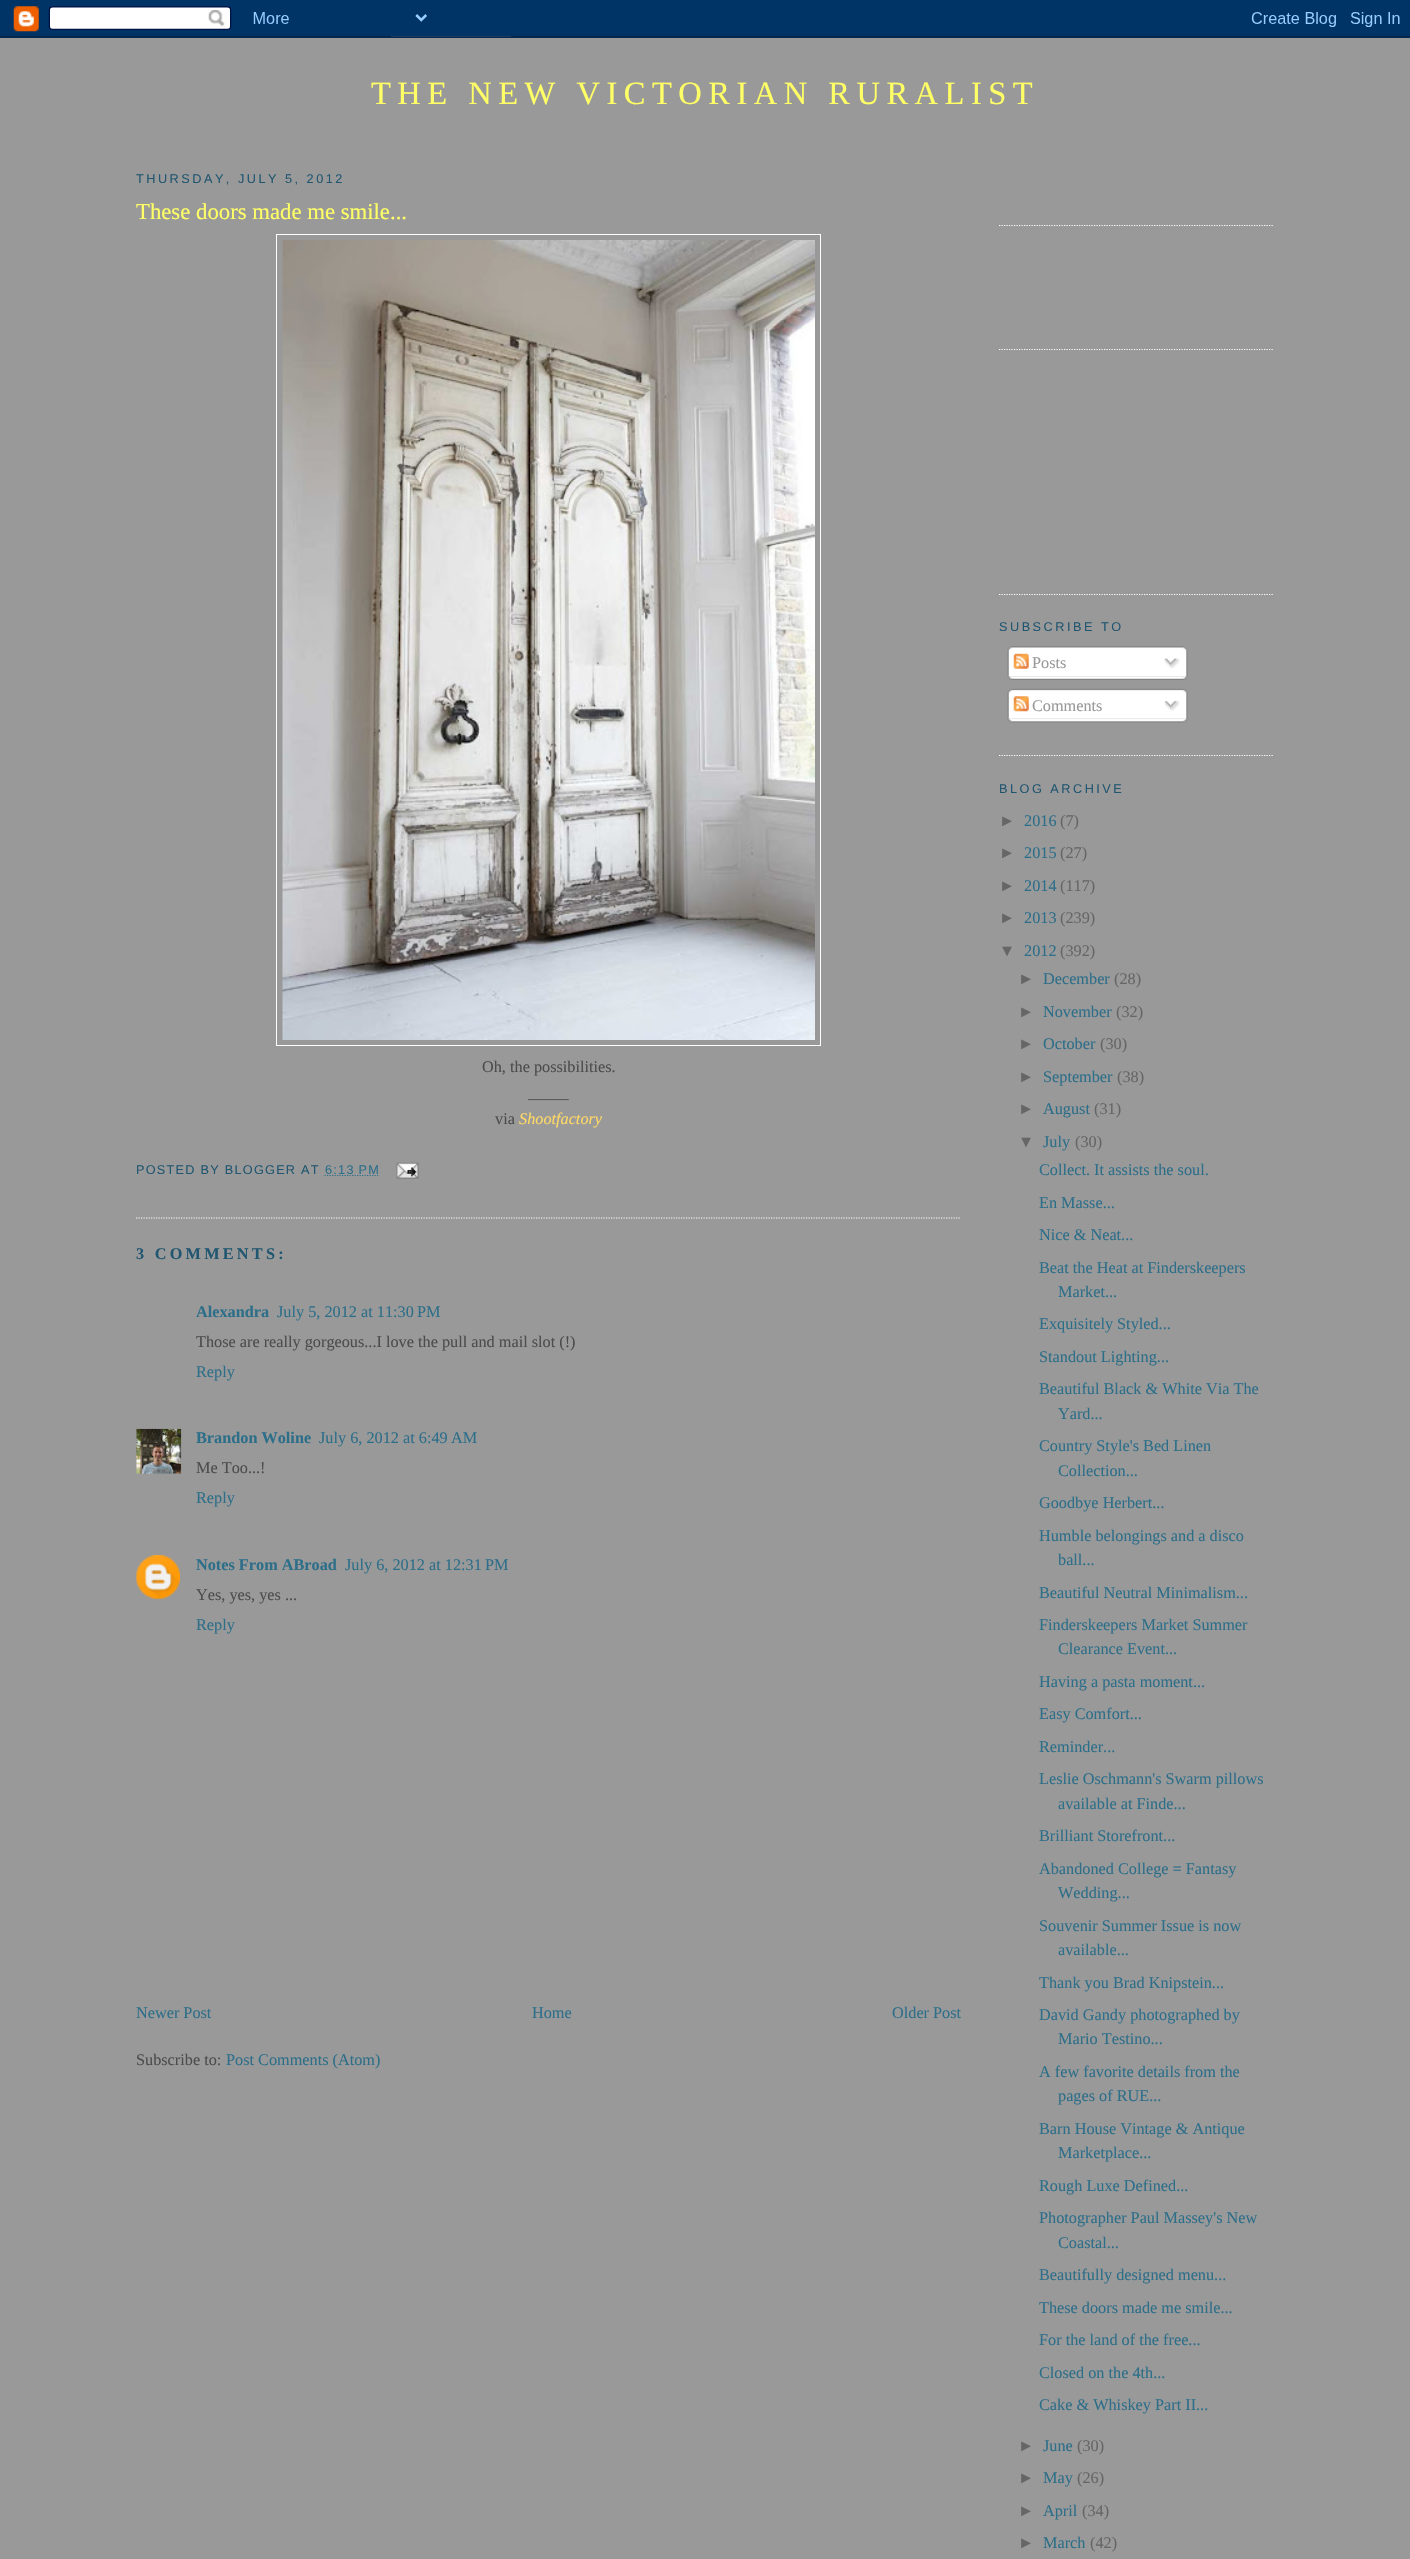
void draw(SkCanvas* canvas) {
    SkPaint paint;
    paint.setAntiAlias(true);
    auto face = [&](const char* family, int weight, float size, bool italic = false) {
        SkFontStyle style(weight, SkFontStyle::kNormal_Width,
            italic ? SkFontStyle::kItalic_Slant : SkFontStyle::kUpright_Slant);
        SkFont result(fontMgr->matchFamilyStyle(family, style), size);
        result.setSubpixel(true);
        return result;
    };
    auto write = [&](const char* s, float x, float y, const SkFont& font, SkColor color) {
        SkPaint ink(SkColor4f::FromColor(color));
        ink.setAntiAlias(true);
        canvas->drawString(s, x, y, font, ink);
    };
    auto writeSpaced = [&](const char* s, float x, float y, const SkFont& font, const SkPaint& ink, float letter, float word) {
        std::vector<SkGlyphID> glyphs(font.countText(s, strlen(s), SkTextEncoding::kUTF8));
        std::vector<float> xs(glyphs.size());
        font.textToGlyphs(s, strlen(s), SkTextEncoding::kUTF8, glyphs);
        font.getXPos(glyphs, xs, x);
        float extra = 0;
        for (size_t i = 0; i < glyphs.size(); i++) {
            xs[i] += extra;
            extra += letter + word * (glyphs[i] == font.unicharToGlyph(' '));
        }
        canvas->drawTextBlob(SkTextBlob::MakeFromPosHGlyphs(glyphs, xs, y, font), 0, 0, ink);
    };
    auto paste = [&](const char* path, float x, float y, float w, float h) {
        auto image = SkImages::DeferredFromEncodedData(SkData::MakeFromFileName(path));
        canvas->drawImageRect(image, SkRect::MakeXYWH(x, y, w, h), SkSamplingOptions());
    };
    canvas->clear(SkColorSetRGB(153, 153, 153));
    paste("pic1.png", 0, 0, 1410, 38);
    auto kFont1 = face("Liberation Serif", 400, 32.5f);
    paint.setColor(SkColorSetRGB(255, 255, 102));
    writeSpaced("THE NEW VICTORIAN RURALIST", 371, 104, kFont1, paint, 6.5f, 0);
    auto kFont2 = face("Liberation Sans", 400, 12.7f);
    paint.setColor(SkColorSetRGB(33, 86, 112));
    writeSpaced("THURSDAY, JULY 5, 2012", 136, 183, kFont2, paint, 2.5f, 0);
    paint.setStyle(SkPaint::kStroke_Style);
    paint.setStrokeWidth(1.2f);
    paint.setColor(SK_ColorWHITE);
    paint.setPathEffect(SkDashPathEffect::Make({{1.25f, 1.25f}}, 0));
    canvas->drawPath(SkPathBuilder().moveTo(136, 1218).lineTo(961, 1218).detach(), paint);
    paint.setPathEffect(nullptr);
    auto kFont3 = face("Liberation Serif", 400, 22.75f);
    write("These doors made me smile...", 136, 219, kFont3, SkColorSetRGB(255, 255, 102));
    paint.setStrokeWidth(1);
    canvas->drawRect(SkRect::MakeXYWH(276.5f, 234.5f, 544, 811), paint);
    paste("pic2.png", 282, 240, 533, 800);
    auto kFont4 = face("Liberation Serif", 400, 16.25f);
    write("Oh, the possibilities.", 482, 1072, kFont4, SkColorSetRGB(76, 76, 76));
    write("_____", 528, 1098, kFont4, SkColorSetRGB(76, 76, 76));
    write("via", 495, 1124, kFont4, SkColorSetRGB(76, 76, 76));
    auto kFont5 = face("Liberation Serif", 400, 16.25f, true);
    write("Shootfactory", 519, 1124, kFont5, SkColorSetRGB(255, 217, 102));
    paint.setStyle(SkPaint::kFill_Style);
    paint.setColor(SkColorSetRGB(33, 86, 112));
    writeSpaced("POSTED BY BLOGGER AT", 136, 1174, kFont2, paint, 1.25f, 0);
    paint.setStyle(SkPaint::kStroke_Style);
    paint.setStrokeWidth(1.2f);
    paint.setColor(SkColorSetRGB(45, 110, 137));
    paint.setPathEffect(SkDashPathEffect::Make({{1.25f, 1.25f}}, 0));
    canvas->drawPath(SkPathBuilder().moveTo(324.5f, 1175.5f).lineTo(379.5f, 1175.5f).detach(), paint);
    paint.setPathEffect(nullptr);
    paint.setStyle(SkPaint::kFill_Style);
    writeSpaced("6:13 PM", 325, 1174, kFont2, paint, 1.25f, 0);
    paste("pic3.png", 396, 1162, 23, 17);
    auto kFont6 = face("Liberation Serif", 700, 16.25f);
    paint.setColor(SkColorSetRGB(33, 86, 112));
    writeSpaced("3 COMMENTS:", 136, 1259, kFont6, paint, 3.25f, 0);
    write("Alexandra", 196, 1317, kFont6, SkColorSetRGB(45, 110, 137));
    write("July 5, 2012 at 11:30 PM", 277, 1317, kFont4, SkColorSetRGB(45, 110, 137));
    write("Those are really gorgeous...I love the pull and mail slot (!)", 196, 1347, kFont4, SkColorSetRGB(76, 76, 76));
    write("Reply", 196, 1377, kFont4, SkColorSetRGB(45, 110, 137));
    paste("pic4.png", 136, 1428, 46, 46);
    write("Brandon Woline", 196, 1443, kFont6, SkColorSetRGB(45, 110, 137));
    write("July 6, 2012 at 6:49 AM", 319, 1443, kFont4, SkColorSetRGB(45, 110, 137));
    write("Me Too...!", 196, 1473, kFont4, SkColorSetRGB(76, 76, 76));
    write("Reply", 196, 1503, kFont4, SkColorSetRGB(45, 110, 137));
    paste("pic5.png", 136, 1555, 44, 44);
    write("Notes From ABroad", 196, 1570, kFont6, SkColorSetRGB(45, 110, 137));
    write("July 6, 2012 at 12:31 PM", 345, 1570, kFont4, SkColorSetRGB(45, 110, 137));
    write("Yes, yes, yes ...", 196, 1600, kFont4, SkColorSetRGB(76, 76, 76));
    write("Reply", 196, 1630, kFont4, SkColorSetRGB(45, 110, 137));
    write("Newer Post", 136, 2018, kFont4, SkColorSetRGB(45, 110, 137));
    write("Home", 532, 2018, kFont4, SkColorSetRGB(45, 110, 137));
    write("Older Post", 892, 2018, kFont4, SkColorSetRGB(45, 110, 137));
    write("Subscribe to:", 136, 2065, kFont4, SkColorSetRGB(76, 76, 76));
    write("Post Comments (Atom)", 226, 2065, kFont4, SkColorSetRGB(45, 110, 137));
    paint.setStyle(SkPaint::kStroke_Style);
    paint.setColor(SK_ColorWHITE);
    paint.setPathEffect(SkDashPathEffect::Make({{1.25f, 1.25f}}, 0));
    canvas->drawPath(SkPathBuilder().moveTo(999, 225.5f).lineTo(1274, 225.5f).detach(), paint);
    paint.setPathEffect(nullptr);
    paint.setPathEffect(SkDashPathEffect::Make({{1.25f, 1.25f}}, 0));
    canvas->drawPath(SkPathBuilder().moveTo(999, 349.5f).lineTo(1274, 349.5f).detach(), paint);
    paint.setPathEffect(nullptr);
    paint.setPathEffect(SkDashPathEffect::Make({{1.25f, 1.25f}}, 0));
    canvas->drawPath(SkPathBuilder().moveTo(999, 594.5f).lineTo(1274, 594.5f).detach(), paint);
    paint.setPathEffect(nullptr);
    paint.setPathEffect(SkDashPathEffect::Make({{1.25f, 1.25f}}, 0));
    canvas->drawPath(SkPathBuilder().moveTo(999, 755.5f).lineTo(1274, 755.5f).detach(), paint);
    paint.setPathEffect(nullptr);
    paint.setStyle(SkPaint::kFill_Style);
    paint.setColor(SkColorSetRGB(33, 86, 112));
    writeSpaced("SUBSCRIBE TO", 999, 631, kFont2, paint, 2.5f, 0);
    paste("pic6.png", 1007, 646, 181, 31);
    paste("pic7.png", 1013, 653, 16, 16);
    write("Posts", 1032, 668, kFont4, SkColorSetRGB(153, 153, 153));
    paste("pic8.png", 1164, 658, 16, 11);
    paste("pic9.png", 1007, 676, 181, 4);
    paste("pic10.png", 1007, 688, 181, 31);
    paste("pic11.png", 1013, 696, 16, 16);
    write("Comments", 1032, 711, kFont4, SkColorSetRGB(153, 153, 153));
    paste("pic12.png", 1164, 700, 16, 11);
    paste("pic13.png", 1007, 718, 181, 5);
    writeSpaced("BLOG ARCHIVE", 999, 793, kFont2, paint, 2.5f, 0);
    auto kFont7 = face("Liberation Sans", 400, 16.25f);
    write("►", 999, 826, kFont7, SkColorSetRGB(102, 102, 102));
    write("2016", 1024, 826, kFont4, SkColorSetRGB(45, 110, 137));
    write("(7)", 1060, 826, kFont4, SkColorSetRGB(102, 102, 102));
    write("►", 999, 858, kFont7, SkColorSetRGB(102, 102, 102));
    write("2015", 1024, 858, kFont4, SkColorSetRGB(45, 110, 137));
    write("(27)", 1060, 858, kFont4, SkColorSetRGB(102, 102, 102));
    write("►", 999, 891, kFont7, SkColorSetRGB(102, 102, 102));
    write("2014", 1024, 891, kFont4, SkColorSetRGB(45, 110, 137));
    write("(117)", 1060, 891, kFont4, SkColorSetRGB(102, 102, 102));
    write("►", 999, 923, kFont7, SkColorSetRGB(102, 102, 102));
    write("2013", 1024, 923, kFont4, SkColorSetRGB(45, 110, 137));
    write("(239)", 1060, 923, kFont4, SkColorSetRGB(102, 102, 102));
    write("▼", 999, 956, kFont7, SkColorSetRGB(102, 102, 102));
    write("2012", 1024, 956, kFont4, SkColorSetRGB(45, 110, 137));
    write("(392)", 1060, 956, kFont4, SkColorSetRGB(102, 102, 102));
    write("►", 1018, 984, kFont7, SkColorSetRGB(102, 102, 102));
    write("December", 1043, 984, kFont4, SkColorSetRGB(45, 110, 137));
    write("(28)", 1114, 984, kFont4, SkColorSetRGB(102, 102, 102));
    write("►", 1018, 1017, kFont7, SkColorSetRGB(102, 102, 102));
    write("November", 1043, 1017, kFont4, SkColorSetRGB(45, 110, 137));
    write("(32)", 1116, 1017, kFont4, SkColorSetRGB(102, 102, 102));
    write("►", 1018, 1049, kFont7, SkColorSetRGB(102, 102, 102));
    write("October", 1043, 1049, kFont4, SkColorSetRGB(45, 110, 137));
    write("(30)", 1100, 1049, kFont4, SkColorSetRGB(102, 102, 102));
    write("►", 1018, 1082, kFont7, SkColorSetRGB(102, 102, 102));
    write("September", 1043, 1082, kFont4, SkColorSetRGB(45, 110, 137));
    write("(38)", 1117, 1082, kFont4, SkColorSetRGB(102, 102, 102));
    write("►", 1018, 1114, kFont7, SkColorSetRGB(102, 102, 102));
    write("August", 1043, 1114, kFont4, SkColorSetRGB(45, 110, 137));
    write("(31)", 1094, 1114, kFont4, SkColorSetRGB(102, 102, 102));
    write("▼", 1018, 1147, kFont7, SkColorSetRGB(102, 102, 102));
    write("July", 1043, 1147, kFont4, SkColorSetRGB(45, 110, 137));
    write("(30)", 1075, 1147, kFont4, SkColorSetRGB(102, 102, 102));
    write("Collect. It assists the soul.", 1039, 1175, kFont4, SkColorSetRGB(45, 110, 137));
    write("En Masse...", 1039, 1208, kFont4, SkColorSetRGB(45, 110, 137));
    write("Nice & Neat...", 1039, 1240, kFont4, SkColorSetRGB(45, 110, 137));
    write("Beat the Heat at Finderskeepers", 1039, 1273, kFont4, SkColorSetRGB(45, 110, 137));
    write("Market...", 1058, 1297, kFont4, SkColorSetRGB(45, 110, 137));
    write("Exquisitely Styled...", 1039, 1329, kFont4, SkColorSetRGB(45, 110, 137));
    write("Standout Lighting...", 1039, 1362, kFont4, SkColorSetRGB(45, 110, 137));
    write("Beautiful Black & White Via The", 1039, 1394, kFont4, SkColorSetRGB(45, 110, 137));
    write("Yard...", 1058, 1419, kFont4, SkColorSetRGB(45, 110, 137));
    write("Country Style's Bed Linen", 1039, 1451, kFont4, SkColorSetRGB(45, 110, 137));
    write("Collection...", 1058, 1476, kFont4, SkColorSetRGB(45, 110, 137));
    write("Goodbye Herbert...", 1039, 1508, kFont4, SkColorSetRGB(45, 110, 137));
    write("Humble belongings and a disco", 1039, 1541, kFont4, SkColorSetRGB(45, 110, 137));
    write("ball...", 1058, 1565, kFont4, SkColorSetRGB(45, 110, 137));
    write("Beautiful Neutral Minimalism...", 1039, 1598, kFont4, SkColorSetRGB(45, 110, 137));
    write("Finderskeepers Market Summer", 1039, 1630, kFont4, SkColorSetRGB(45, 110, 137));
    write("Clearance Event...", 1058, 1654, kFont4, SkColorSetRGB(45, 110, 137));
    write("Having a pasta moment...", 1039, 1687, kFont4, SkColorSetRGB(45, 110, 137));
    write("Easy Comfort...", 1039, 1719, kFont4, SkColorSetRGB(45, 110, 137));
    write("Reminder...", 1039, 1752, kFont4, SkColorSetRGB(45, 110, 137));
    write("Leslie Oschmann's Swarm pillows", 1039, 1784, kFont4, SkColorSetRGB(45, 110, 137));
    write("available at Finde...", 1058, 1809, kFont4, SkColorSetRGB(45, 110, 137));
    write("Brilliant Storefront...", 1039, 1841, kFont4, SkColorSetRGB(45, 110, 137));
    write("Abandoned College = Fantasy", 1039, 1874, kFont4, SkColorSetRGB(45, 110, 137));
    write("Wedding...", 1058, 1898, kFont4, SkColorSetRGB(45, 110, 137));
    write("Souvenir Summer Issue is now", 1039, 1931, kFont4, SkColorSetRGB(45, 110, 137));
    write("available...", 1058, 1955, kFont4, SkColorSetRGB(45, 110, 137));
    write("Thank you Brad Knipstein...", 1039, 1988, kFont4, SkColorSetRGB(45, 110, 137));
    write("David Gandy photographed by", 1039, 2020, kFont4, SkColorSetRGB(45, 110, 137));
    write("Mario Testino...", 1058, 2044, kFont4, SkColorSetRGB(45, 110, 137));
    write("A few favorite details from the", 1039, 2077, kFont4, SkColorSetRGB(45, 110, 137));
    write("pages of RUE...", 1058, 2101, kFont4, SkColorSetRGB(45, 110, 137));
    write("Barn House Vintage & Antique", 1039, 2134, kFont4, SkColorSetRGB(45, 110, 137));
    write("Marketplace...", 1058, 2158, kFont4, SkColorSetRGB(45, 110, 137));
    write("Rough Luxe Defined...", 1039, 2191, kFont4, SkColorSetRGB(45, 110, 137));
    write("Photographer Paul Massey's New", 1039, 2223, kFont4, SkColorSetRGB(45, 110, 137));
    write("Coastal...", 1058, 2248, kFont4, SkColorSetRGB(45, 110, 137));
    write("Beautifully designed menu...", 1039, 2280, kFont4, SkColorSetRGB(45, 110, 137));
    write("These doors made me smile...", 1039, 2313, kFont4, SkColorSetRGB(45, 110, 137));
    write("For the land of the free...", 1039, 2345, kFont4, SkColorSetRGB(45, 110, 137));
    write("Closed on the 4th...", 1039, 2378, kFont4, SkColorSetRGB(45, 110, 137));
    write("Cake & Whiskey Part II...", 1039, 2410, kFont4, SkColorSetRGB(45, 110, 137));
    write("►", 1018, 2451, kFont7, SkColorSetRGB(102, 102, 102));
    write("June", 1043, 2451, kFont4, SkColorSetRGB(45, 110, 137));
    write("(30)", 1077, 2451, kFont4, SkColorSetRGB(102, 102, 102));
    write("►", 1018, 2483, kFont7, SkColorSetRGB(102, 102, 102));
    write("May", 1043, 2483, kFont4, SkColorSetRGB(45, 110, 137));
    write("(26)", 1077, 2483, kFont4, SkColorSetRGB(102, 102, 102));
    write("►", 1018, 2516, kFont7, SkColorSetRGB(102, 102, 102));
    write("April", 1043, 2516, kFont4, SkColorSetRGB(45, 110, 137));
    write("(34)", 1082, 2516, kFont4, SkColorSetRGB(102, 102, 102));
    write("►", 1018, 2548, kFont7, SkColorSetRGB(102, 102, 102));
    write("March", 1043, 2548, kFont4, SkColorSetRGB(45, 110, 137));
    write("(42)", 1090, 2548, kFont4, SkColorSetRGB(102, 102, 102));
}
